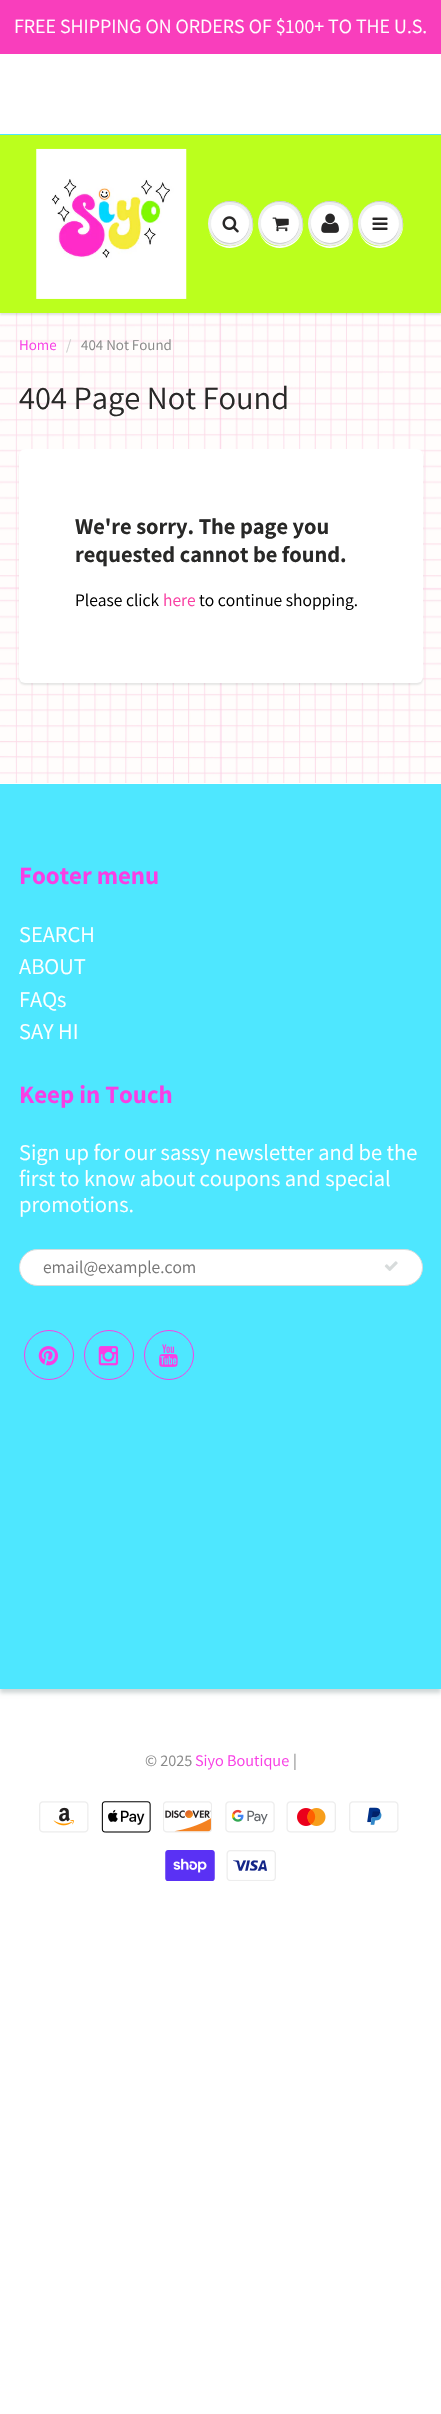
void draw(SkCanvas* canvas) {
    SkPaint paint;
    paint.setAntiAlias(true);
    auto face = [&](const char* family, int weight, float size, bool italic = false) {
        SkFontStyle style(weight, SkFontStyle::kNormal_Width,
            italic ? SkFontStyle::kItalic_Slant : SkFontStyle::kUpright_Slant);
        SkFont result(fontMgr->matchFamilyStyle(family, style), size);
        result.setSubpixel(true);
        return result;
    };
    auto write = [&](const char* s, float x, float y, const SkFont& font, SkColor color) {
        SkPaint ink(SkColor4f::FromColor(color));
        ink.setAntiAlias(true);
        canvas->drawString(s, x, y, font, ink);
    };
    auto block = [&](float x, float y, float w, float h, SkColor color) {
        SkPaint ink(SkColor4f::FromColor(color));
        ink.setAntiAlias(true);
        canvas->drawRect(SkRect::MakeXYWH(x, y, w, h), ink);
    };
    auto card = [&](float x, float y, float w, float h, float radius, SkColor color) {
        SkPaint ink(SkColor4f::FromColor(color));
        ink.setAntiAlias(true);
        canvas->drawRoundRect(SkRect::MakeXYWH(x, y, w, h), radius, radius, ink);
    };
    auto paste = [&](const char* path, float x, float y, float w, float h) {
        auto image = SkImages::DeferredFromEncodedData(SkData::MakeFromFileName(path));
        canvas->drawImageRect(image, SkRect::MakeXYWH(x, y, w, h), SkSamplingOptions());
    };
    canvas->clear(SK_ColorWHITE);
    block(0, 0, 441, 54, SkColorSetRGB(249, 62, 188));
    auto kFont1 = face("Assistant", 400, 20);
    write("FREE SHIPPING ON ORDERS OF $100+ TO THE U.S.", 14, 33, kFont1, SK_ColorWHITE);
    paste("pic6.png", 0, 313, 441, 470);
    paint.setColor(SkColorSetARGB(31, 11, 25, 28));
    paint.setMaskFilter(SkMaskFilter::MakeBlur(kNormal_SkBlurStyle, 1));
    canvas->drawRect(SkRect::MakeXYWH(0, 136, 441, 179), paint);
    paint.setMaskFilter(nullptr);
    block(0, 135, 441, 178, SkColorSetRGB(187, 255, 29));
    block(0, 134, 441, 1, SkColorSetRGB(78, 231, 255));
    paste("pic1.png", 36, 148, 151, 151);
    paint.setColor(SK_ColorWHITE);
    canvas->drawPath(SkPathBuilder().moveTo(209, 231).cubicTo(210, 236, 213, 240, 216, 243).cubicTo(234, 257, 259, 239, 252, 218).cubicTo(259, 246, 218, 258, 209, 231).close().detach(), paint);
    paint.setColor(SkColorSetRGB(237, 239, 239));
    canvas->drawCircle(230.5f, 223.5f, 22.5f, paint);
    paint.setColor(SkColorSetRGB(201, 203, 203));
    canvas->drawPath(SkPathBuilder().moveTo(230, 202).cubicTo(247.5f, 202, 254.5f, 217.5f, 252, 230).cubicTo(259, 208, 231.5f, 191.5f, 215, 207).cubicTo(218.5f, 204, 223.5f, 202, 230, 202).close().detach(), paint);
    canvas->drawPath(SkPathBuilder().moveTo(211.5f, 220.5f).cubicTo(210.5f, 225.5f, 211.5f, 231, 214, 235.5f).cubicTo(226, 253, 253.5f, 240.5f, 248.5f, 220.5f).cubicTo(249.5f, 225.5f, 248, 230.5f, 245.5f, 234).cubicTo(234.5f, 251, 208, 240, 211.5f, 220.5f).close().detach(), paint);
    paint.setColor(SK_ColorWHITE);
    canvas->drawCircle(230, 224, 19, paint);
    canvas->drawPath(SkPathBuilder().moveTo(230, 206).cubicTo(244, 206, 250, 218, 248, 228).cubicTo(250, 223, 249, 218, 246, 213).cubicTo(234, 196, 207, 208, 212, 228).cubicTo(210, 218, 216, 206, 230, 206).close().detach(), paint);
    paste("pic2.png", 222, 216, 17, 17);
    canvas->drawPath(SkPathBuilder().moveTo(259, 231).cubicTo(260, 236, 263, 240, 266, 243).cubicTo(284, 257, 309, 239, 302, 218).cubicTo(309, 246, 268, 258, 259, 231).close().detach(), paint);
    paint.setColor(SkColorSetRGB(237, 239, 239));
    canvas->drawCircle(280.5f, 223.5f, 22.5f, paint);
    paint.setColor(SkColorSetRGB(201, 203, 203));
    canvas->drawPath(SkPathBuilder().moveTo(280, 202).cubicTo(297.5f, 202, 304.5f, 217.5f, 302, 230).cubicTo(309, 208, 281.5f, 191.5f, 265, 207).cubicTo(268.5f, 204, 273.5f, 202, 280, 202).close().detach(), paint);
    canvas->drawPath(SkPathBuilder().moveTo(261.5f, 220.5f).cubicTo(260.5f, 225.5f, 261.5f, 231, 264, 235.5f).cubicTo(276, 253, 303.5f, 240.5f, 298.5f, 220.5f).cubicTo(299.5f, 225.5f, 298, 230.5f, 295.5f, 234).cubicTo(284.5f, 251, 258, 240, 261.5f, 220.5f).close().detach(), paint);
    paint.setColor(SK_ColorWHITE);
    canvas->drawCircle(280, 224, 19, paint);
    canvas->drawPath(SkPathBuilder().moveTo(280, 206).cubicTo(294, 206, 300, 218, 298, 228).cubicTo(303, 208, 276, 196, 264, 213).cubicTo(261, 218, 260, 223, 262, 228).cubicTo(260, 218, 266, 206, 280, 206).close().detach(), paint);
    paste("pic3.png", 272, 217, 17, 15);
    canvas->drawPath(SkPathBuilder().moveTo(309, 231).cubicTo(310, 236, 313, 240, 316, 243).cubicTo(334, 257, 359, 239, 352, 218).cubicTo(359, 246, 318, 258, 309, 231).close().detach(), paint);
    paint.setColor(SkColorSetRGB(237, 239, 239));
    canvas->drawCircle(330.5f, 223.5f, 22.5f, paint);
    paint.setColor(SkColorSetRGB(201, 203, 203));
    canvas->drawPath(SkPathBuilder().moveTo(330, 202).cubicTo(347.5f, 202, 354.5f, 217.5f, 352, 230).cubicTo(359, 208, 331.5f, 191.5f, 315, 207).cubicTo(318.5f, 204, 323.5f, 202, 330, 202).close().detach(), paint);
    canvas->drawPath(SkPathBuilder().moveTo(311.5f, 220.5f).cubicTo(306.5f, 240.5f, 334, 253, 346, 235.5f).cubicTo(348.5f, 231, 349.5f, 225.5f, 348.5f, 220.5f).cubicTo(349.5f, 225.5f, 348, 230.5f, 345.5f, 234).cubicTo(334.5f, 251, 308, 240, 311.5f, 220.5f).close().detach(), paint);
    paint.setColor(SK_ColorWHITE);
    canvas->drawCircle(330, 224, 19, paint);
    canvas->drawPath(SkPathBuilder().moveTo(330, 206).cubicTo(344, 206, 350, 218, 348, 228).cubicTo(353, 208, 326, 196, 314, 213).cubicTo(311, 218, 310, 223, 312, 228).cubicTo(310, 218, 316, 206, 330, 206).close().detach(), paint);
    paste("pic4.png", 321, 213, 18, 20);
    canvas->drawPath(SkPathBuilder().moveTo(359, 231).cubicTo(360, 236, 363, 240, 366, 243).cubicTo(384, 257, 409, 239, 402, 218).cubicTo(409, 246, 368, 258, 359, 231).close().detach(), paint);
    paint.setColor(SkColorSetRGB(237, 239, 239));
    canvas->drawCircle(380.5f, 223.5f, 22.5f, paint);
    paint.setColor(SkColorSetRGB(201, 203, 203));
    canvas->drawPath(SkPathBuilder().moveTo(380, 202).cubicTo(397.5f, 202, 404.5f, 217.5f, 402, 230).cubicTo(409, 208, 381.5f, 191.5f, 365, 207).cubicTo(368.5f, 204, 373.5f, 202, 380, 202).close().detach(), paint);
    canvas->drawPath(SkPathBuilder().moveTo(361.5f, 220.5f).cubicTo(356.5f, 240.5f, 384, 253, 396, 235.5f).cubicTo(398.5f, 231, 399.5f, 225.5f, 398.5f, 220.5f).cubicTo(399.5f, 225.5f, 398, 230.5f, 395.5f, 234).cubicTo(384.5f, 251, 358, 240, 361.5f, 220.5f).close().detach(), paint);
    paint.setColor(SK_ColorWHITE);
    canvas->drawCircle(380, 224, 19, paint);
    canvas->drawPath(SkPathBuilder().moveTo(380, 206).cubicTo(394, 206, 400, 218, 398, 228).cubicTo(403, 208, 376, 196, 364, 213).cubicTo(361, 218, 360, 223, 362, 228).cubicTo(360, 218, 366, 206, 380, 206).close().detach(), paint);
    paste("pic5.png", 372, 217, 16, 13);
    auto kFont2 = face("Assistant", 400, 15);
    write("Home", 19, 350, kFont2, SkColorSetRGB(249, 62, 229));
    write("/", 66, 350, kFont2, SkColorSetRGB(204, 204, 204));
    write("404 Not Found", 81, 350, kFont2, SkColorSetRGB(137, 137, 137));
    auto kFont3 = face("Assistant", 400, 32.5f);
    write("404 Page Not Found", 19, 409, kFont3, SkColorSetRGB(40, 40, 39));
    paint.setColor(SkColorSetARGB(26, 11, 25, 28));
    paint.setMaskFilter(SkMaskFilter::MakeBlur(kNormal_SkBlurStyle, 1));
    canvas->drawRoundRect(SkRect::MakeXYWH(19, 451, 404, 234), 6, 6, paint);
    paint.setMaskFilter(nullptr);
    card(19, 449, 404, 234, 6, SK_ColorWHITE);
    auto kFont4 = face("Assistant", 700, 22.5f);
    write("We're sorry. The page you", 75, 534, kFont4, SkColorSetRGB(40, 40, 39));
    write("requested cannot be found.", 75, 562, kFont4, SkColorSetRGB(40, 40, 39));
    auto kFont5 = face("Assistant", 400, 17.5f);
    write("Please click", 75, 606, kFont5, SK_ColorBLACK);
    write("here", 163, 606, kFont5, SkColorSetRGB(249, 62, 162));
    write("to continue shopping.", 199, 606, kFont5, SK_ColorBLACK);
    paint.setColor(SkColorSetRGB(209, 215, 215));
    paint.setMaskFilter(SkMaskFilter::MakeBlur(kNormal_SkBlurStyle, 2));
    canvas->drawRect(SkRect::MakeXYWH(0, 786, 441, 907), paint);
    paint.setMaskFilter(nullptr);
    block(0, 784, 441, 905, SkColorSetRGB(78, 231, 255));
    block(0, 783, 441, 1, SK_ColorWHITE);
    auto kFont6 = face("Assistant", 700, 25);
    write("Footer menu", 19, 884, kFont6, SkColorSetRGB(249, 62, 229));
    auto kFont7 = face("Assistant", 400, 22.5f);
    write("SEARCH", 19, 942, kFont7, SK_ColorWHITE);
    write("ABOUT", 19, 974, kFont7, SK_ColorWHITE);
    write("FAQs", 19, 1007, kFont7, SK_ColorWHITE);
    write("SAY HI", 19, 1039, kFont7, SK_ColorWHITE);
    write("Keep in Touch", 19, 1103, kFont6, SkColorSetRGB(249, 62, 229));
    write("Sign up for our sassy newsletter and be the", 19, 1160, kFont7, SK_ColorWHITE);
    write("first to know about coupons and special", 19, 1186, kFont7, SK_ColorWHITE);
    write("promotions.", 19, 1212, kFont7, SK_ColorWHITE);
    paint.setColor(SK_ColorWHITE);
    canvas->drawRoundRect(SkRect::MakeXYWH(19.5f, 1249.5f, 403, 36), 18, 18, paint);
    paint.setStyle(SkPaint::kStroke_Style);
    paint.setStrokeWidth(1);
    paint.setColor(SkColorSetRGB(215, 219, 219));
    canvas->drawRoundRect(SkRect::MakeXYWH(19.5f, 1249.5f, 403, 36), 18, 18, paint);
    write("email@example.com", 43, 1273, kFont5, SkColorSetRGB(117, 117, 117));
    paste("pic7.png", 384, 1261, 14, 10);
    paint.setColor(SkColorSetRGB(249, 62, 229));
    canvas->drawCircle(49, 1355, 24.5f, paint);
    paste("pic8.png", 38, 1346, 20, 20);
    canvas->drawCircle(109, 1355, 24.5f, paint);
    paste("pic9.png", 98, 1346, 21, 20);
    canvas->drawCircle(169, 1355, 24.5f, paint);
    paste("pic10.png", 159, 1344, 19, 23);
    auto kFont8 = face("Assistant", 400, 16.25f);
    write("© 2025", 145, 1766, kFont8, SkColorSetRGB(137, 137, 137));
    write("Siyo Boutique", 195, 1766, kFont8, SkColorSetRGB(249, 62, 229));
    write("|", 293, 1766, kFont8, SkColorSetRGB(137, 137, 137));
    paste("pic11.png", 39, 1801, 50, 32);
    paste("pic12.png", 101, 1801, 50, 32);
    paste("pic13.png", 163, 1801, 49, 32);
    paste("pic14.png", 225, 1801, 50, 32);
    paste("pic15.png", 286, 1801, 50, 32);
    paste("pic16.png", 349, 1801, 50, 32);
    paste("pic17.png", 165, 1850, 50, 31);
    paste("pic18.png", 226, 1850, 50, 31);
}
